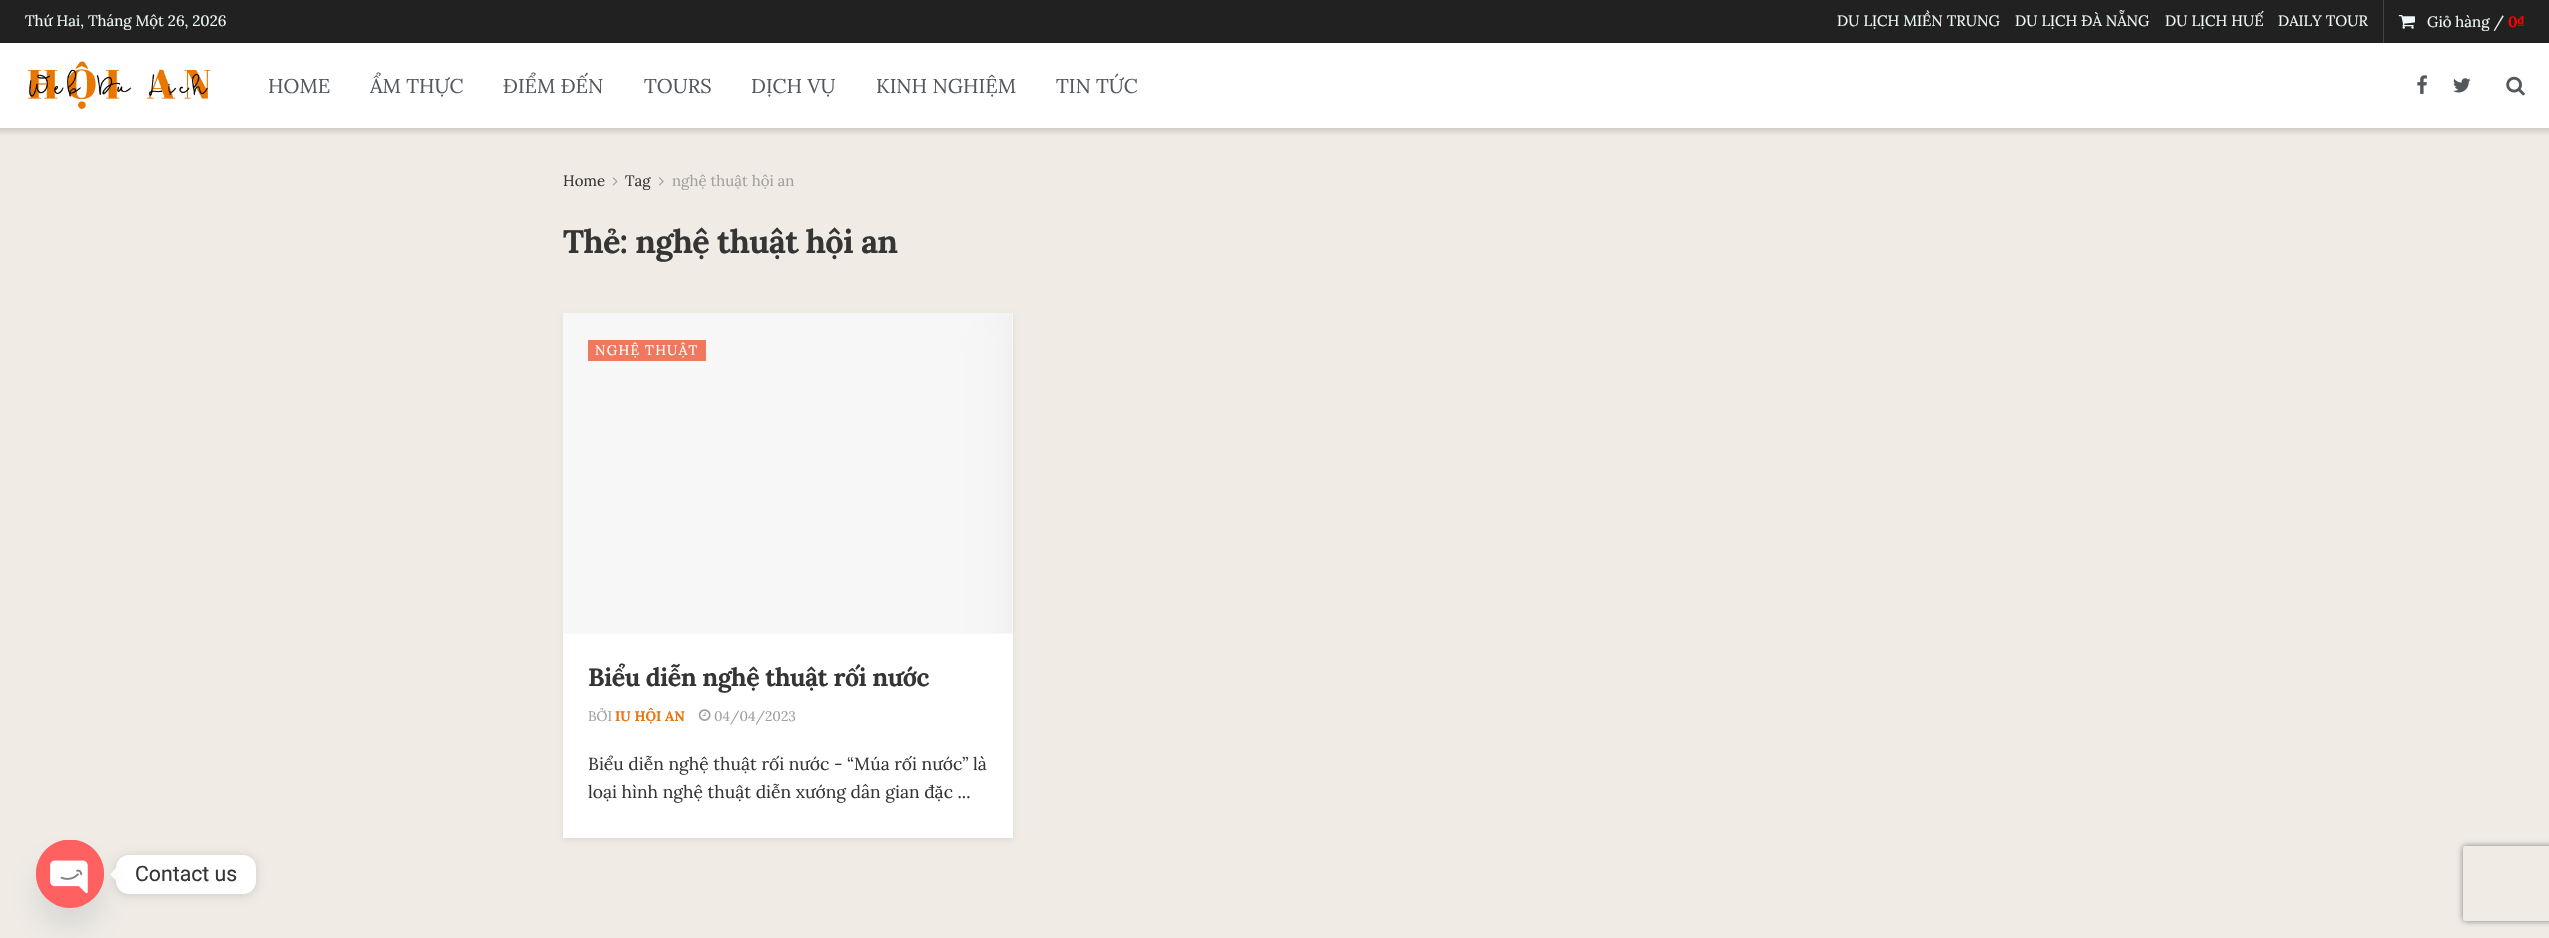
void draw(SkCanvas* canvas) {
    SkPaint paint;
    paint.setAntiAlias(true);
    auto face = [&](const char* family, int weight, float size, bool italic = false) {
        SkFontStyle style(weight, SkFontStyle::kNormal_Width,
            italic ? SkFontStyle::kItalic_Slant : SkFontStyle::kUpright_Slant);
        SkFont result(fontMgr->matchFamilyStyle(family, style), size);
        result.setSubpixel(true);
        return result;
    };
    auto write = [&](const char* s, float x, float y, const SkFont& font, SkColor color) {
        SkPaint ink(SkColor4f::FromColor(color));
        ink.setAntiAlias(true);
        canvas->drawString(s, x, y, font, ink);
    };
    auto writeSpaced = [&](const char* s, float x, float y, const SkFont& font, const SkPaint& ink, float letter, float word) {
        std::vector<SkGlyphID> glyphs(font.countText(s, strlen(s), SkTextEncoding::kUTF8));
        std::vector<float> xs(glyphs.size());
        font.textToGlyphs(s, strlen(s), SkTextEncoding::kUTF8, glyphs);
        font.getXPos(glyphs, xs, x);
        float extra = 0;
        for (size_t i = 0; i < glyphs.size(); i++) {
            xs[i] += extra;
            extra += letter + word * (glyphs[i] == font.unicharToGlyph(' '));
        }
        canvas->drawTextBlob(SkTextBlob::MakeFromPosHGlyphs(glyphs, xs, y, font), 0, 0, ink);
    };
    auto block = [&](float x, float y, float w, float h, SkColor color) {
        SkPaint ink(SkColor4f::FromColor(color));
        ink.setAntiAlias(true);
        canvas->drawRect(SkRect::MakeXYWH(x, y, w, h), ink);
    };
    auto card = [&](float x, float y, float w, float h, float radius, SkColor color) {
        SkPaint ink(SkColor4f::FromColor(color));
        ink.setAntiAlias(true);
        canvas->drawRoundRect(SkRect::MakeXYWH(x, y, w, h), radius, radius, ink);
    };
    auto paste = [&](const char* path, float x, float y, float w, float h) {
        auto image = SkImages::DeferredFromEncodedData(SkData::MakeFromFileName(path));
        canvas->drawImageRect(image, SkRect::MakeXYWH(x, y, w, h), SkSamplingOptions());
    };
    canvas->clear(SK_ColorWHITE);
    block(0, 0, 2549, 43, SkColorSetRGB(33, 33, 33));
    auto kFont1 = face("Lora", 400, 15);
    write("Thứ Hai, Tháng Một 26, 2026", 25, 26, kFont1, SkColorSetRGB(238, 249, 249));
    block(2383, 0, 1, 43, SkColorSetRGB(66, 66, 66));
    write("DU LỊCH MIỀN TRUNG", 1837, 26, kFont1, SkColorSetRGB(238, 249, 249));
    write("DU LỊCH ĐÀ NẴNG", 2015, 26, kFont1, SkColorSetRGB(238, 249, 249));
    write("DU LỊCH HUẾ", 2165, 26, kFont1, SkColorSetRGB(238, 249, 249));
    write("DAILY TOUR", 2278, 26, kFont1, SkColorSetRGB(238, 249, 249));
    paste("pic1.png", 2398, 15, 17, 14);
    write("Giỏ hàng /", 2427, 27, kFont1, SkColorSetRGB(238, 249, 249));
    auto kFont2 = face("Lora", 700, 15);
    write("0", 2508, 27, kFont2, SkColorSetRGB(255, 0, 0));
    auto kFont3 = face("Liberation Sans", 700, 15);
    write("₫", 2517, 27, kFont3, SkColorSetRGB(255, 0, 0));
    paste("pic2.png", 27, 61, 184, 48);
    auto kFont4 = face("Lora", 400, 20);
    write("HOME", 268, 93, kFont4, SkColorSetRGB(83, 88, 92));
    write("ẨM THỰC", 370, 93, kFont4, SkColorSetRGB(83, 88, 92));
    write("ĐIỂM ĐẾN", 503, 93, kFont4, SkColorSetRGB(83, 88, 92));
    write("TOURS", 644, 93, kFont4, SkColorSetRGB(83, 88, 92));
    write("DỊCH VỤ", 751, 93, kFont4, SkColorSetRGB(83, 88, 92));
    write("KINH NGHIỆM", 876, 93, kFont4, SkColorSetRGB(83, 88, 92));
    write("TIN TỨC", 1056, 93, kFont4, SkColorSetRGB(83, 88, 92));
    paste("pic3.png", 2417, 75, 10, 19);
    paste("pic4.png", 2453, 78, 18, 15);
    paste("pic5.png", 2506, 76, 19, 20);
    {
        const SkColor colors[] = {SkColorSetRGB(204, 201, 195), SkColorSetRGB(240, 236, 229)};
        const float stops[] = {0, 1};
        const SkPoint ends[] = {{1275, 127}, {1275, 136}};
        paint.setShader(SkGradientShader::MakeLinear(ends, colors, stops, 2, SkTileMode::kClamp));
        paint.setAlpha(255);
    }
    canvas->drawRect(SkRect::MakeXYWH(0, 128, 2549, 8), paint);
    block(0, 136, 2549, 802, SkColorSetRGB(240, 236, 229));
    write("Home", 563, 186, kFont1, SkColorSetRGB(53, 53, 53));
    paste("pic6.png", 612, 177, 6, 9);
    write("Tag", 625, 186, kFont1, SkColorSetRGB(53, 53, 53));
    paste("pic7.png", 659, 177, 5, 9);
    write("nghệ thuật hội an", 672, 186, kFont1, SkColorSetRGB(160, 160, 160));
    auto kFont5 = face("Lora", 700, 32.5f);
    paint.setShader(nullptr);
    paint.setColor(SkColorSetRGB(53, 53, 53));
    writeSpaced("Thẻ: nghệ thuật hội an", 563, 253, kFont5, paint, -0.65f, 0);
    paint.setColor(SkColorSetARGB(20, 0, 0, 0));
    paint.setMaskFilter(SkMaskFilter::MakeBlur(kNormal_SkBlurStyle, 2.5f));
    canvas->drawRect(SkRect::MakeXYWH(563, 315, 450, 525), paint);
    paint.setMaskFilter(nullptr);
    block(563, 634, 450, 204, SK_ColorWHITE);
    block(563, 313, 450, 321, SkColorSetRGB(247, 247, 247));
    paste("pic8.png", 562, 312, 450, 321);
    block(588, 340, 118, 21, SkColorSetRGB(240, 120, 95));
    auto kFont6 = face("Lora", 400, 13.75f);
    paint.setColor(SK_ColorWHITE);
    writeSpaced("NGHỆ THUẬT", 595, 355, kFont6, paint, 1.25f, 0);
    auto kFont7 = face("Lora", 700, 25);
    paint.setColor(SkColorSetRGB(53, 53, 53));
    writeSpaced("Biểu diễn nghệ thuật rối nước", 588, 686, kFont7, paint, -0.5f, 0);
    write("BỞI", 588, 721, kFont6, SkColorSetRGB(160, 160, 160));
    auto kFont8 = face("Lora", 700, 13.75f);
    write("IU HỘI AN", 615, 721, kFont8, SkColorSetRGB(232, 119, 20));
    paste("pic9.png", 698, 709, 13, 12);
    write("04/04/2023", 714, 721, kFont6, SkColorSetRGB(160, 160, 160));
    auto kFont9 = face("Lora", 400, 17.5f);
    write("Biểu diễn nghệ thuật rối nước - “Múa rối nước” là", 588, 770, kFont9, SkColorSetRGB(53, 53, 53));
    write("loại hình nghệ thuật diễn xướng dân gian đặc ...", 588, 798, kFont9, SkColorSetRGB(53, 53, 53));
    paint.setColor(SkColorSetARGB(38, 0, 0, 0));
    paint.setMaskFilter(SkMaskFilter::MakeBlur(kNormal_SkBlurStyle, 5));
    canvas->drawRoundRect(SkRect::MakeXYWH(116, 856, 140, 39), 13, 13, paint);
    paint.setMaskFilter(nullptr);
    card(116, 855, 140, 39, 13, SK_ColorWHITE);
    paint.setColor(SK_ColorWHITE);
    canvas->drawPath(SkPathBuilder().moveTo(116, 868).lineTo(116, 880.5f).lineTo(110, 874.5f).close().detach(), paint);
    paint.setColor(SkColorSetARGB(41, 73, 104, 126));
    paint.setMaskFilter(SkMaskFilter::MakeBlur(kNormal_SkBlurStyle, 15));
    canvas->drawRoundRect(SkRect::MakeXYWH(36, 860, 68, 68), 34, 34, paint);
    paint.setMaskFilter(nullptr);
    paint.setColor(SkColorSetRGB(255, 96, 96));
    canvas->drawCircle(70, 874, 34, paint);
    paste("pic10.png", 36, 840, 68, 59);
    auto kFont10 = face("Roboto", 400, 21.25f);
    write("Contact us", 135, 881, kFont10, SkColorSetRGB(53, 53, 53));
    canvas->save();
    canvas->clipPath(SkPathBuilder(SkPathFillType::kEvenOdd).moveTo(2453, 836).lineTo(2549, 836).lineTo(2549, 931).lineTo(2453, 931).close().moveTo(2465.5f, 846).lineTo(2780.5f, 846).cubicTo(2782, 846, 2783, 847, 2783, 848.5f).lineTo(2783, 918.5f).cubicTo(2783, 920, 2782, 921, 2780.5f, 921).lineTo(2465.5f, 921).cubicTo(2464, 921, 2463, 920, 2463, 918.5f).lineTo(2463, 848.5f).cubicTo(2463, 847, 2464, 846, 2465.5f, 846).close().detach(), true);
    paint.setColor(SkColorSetRGB(128, 128, 128));
    paint.setMaskFilter(SkMaskFilter::MakeBlur(kNormal_SkBlurStyle, 3));
    canvas->drawRoundRect(SkRect::MakeXYWH(2463, 846, 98, 75), 2.5f, 2.5f, paint);
    paint.setMaskFilter(nullptr);
    canvas->restore();
}
